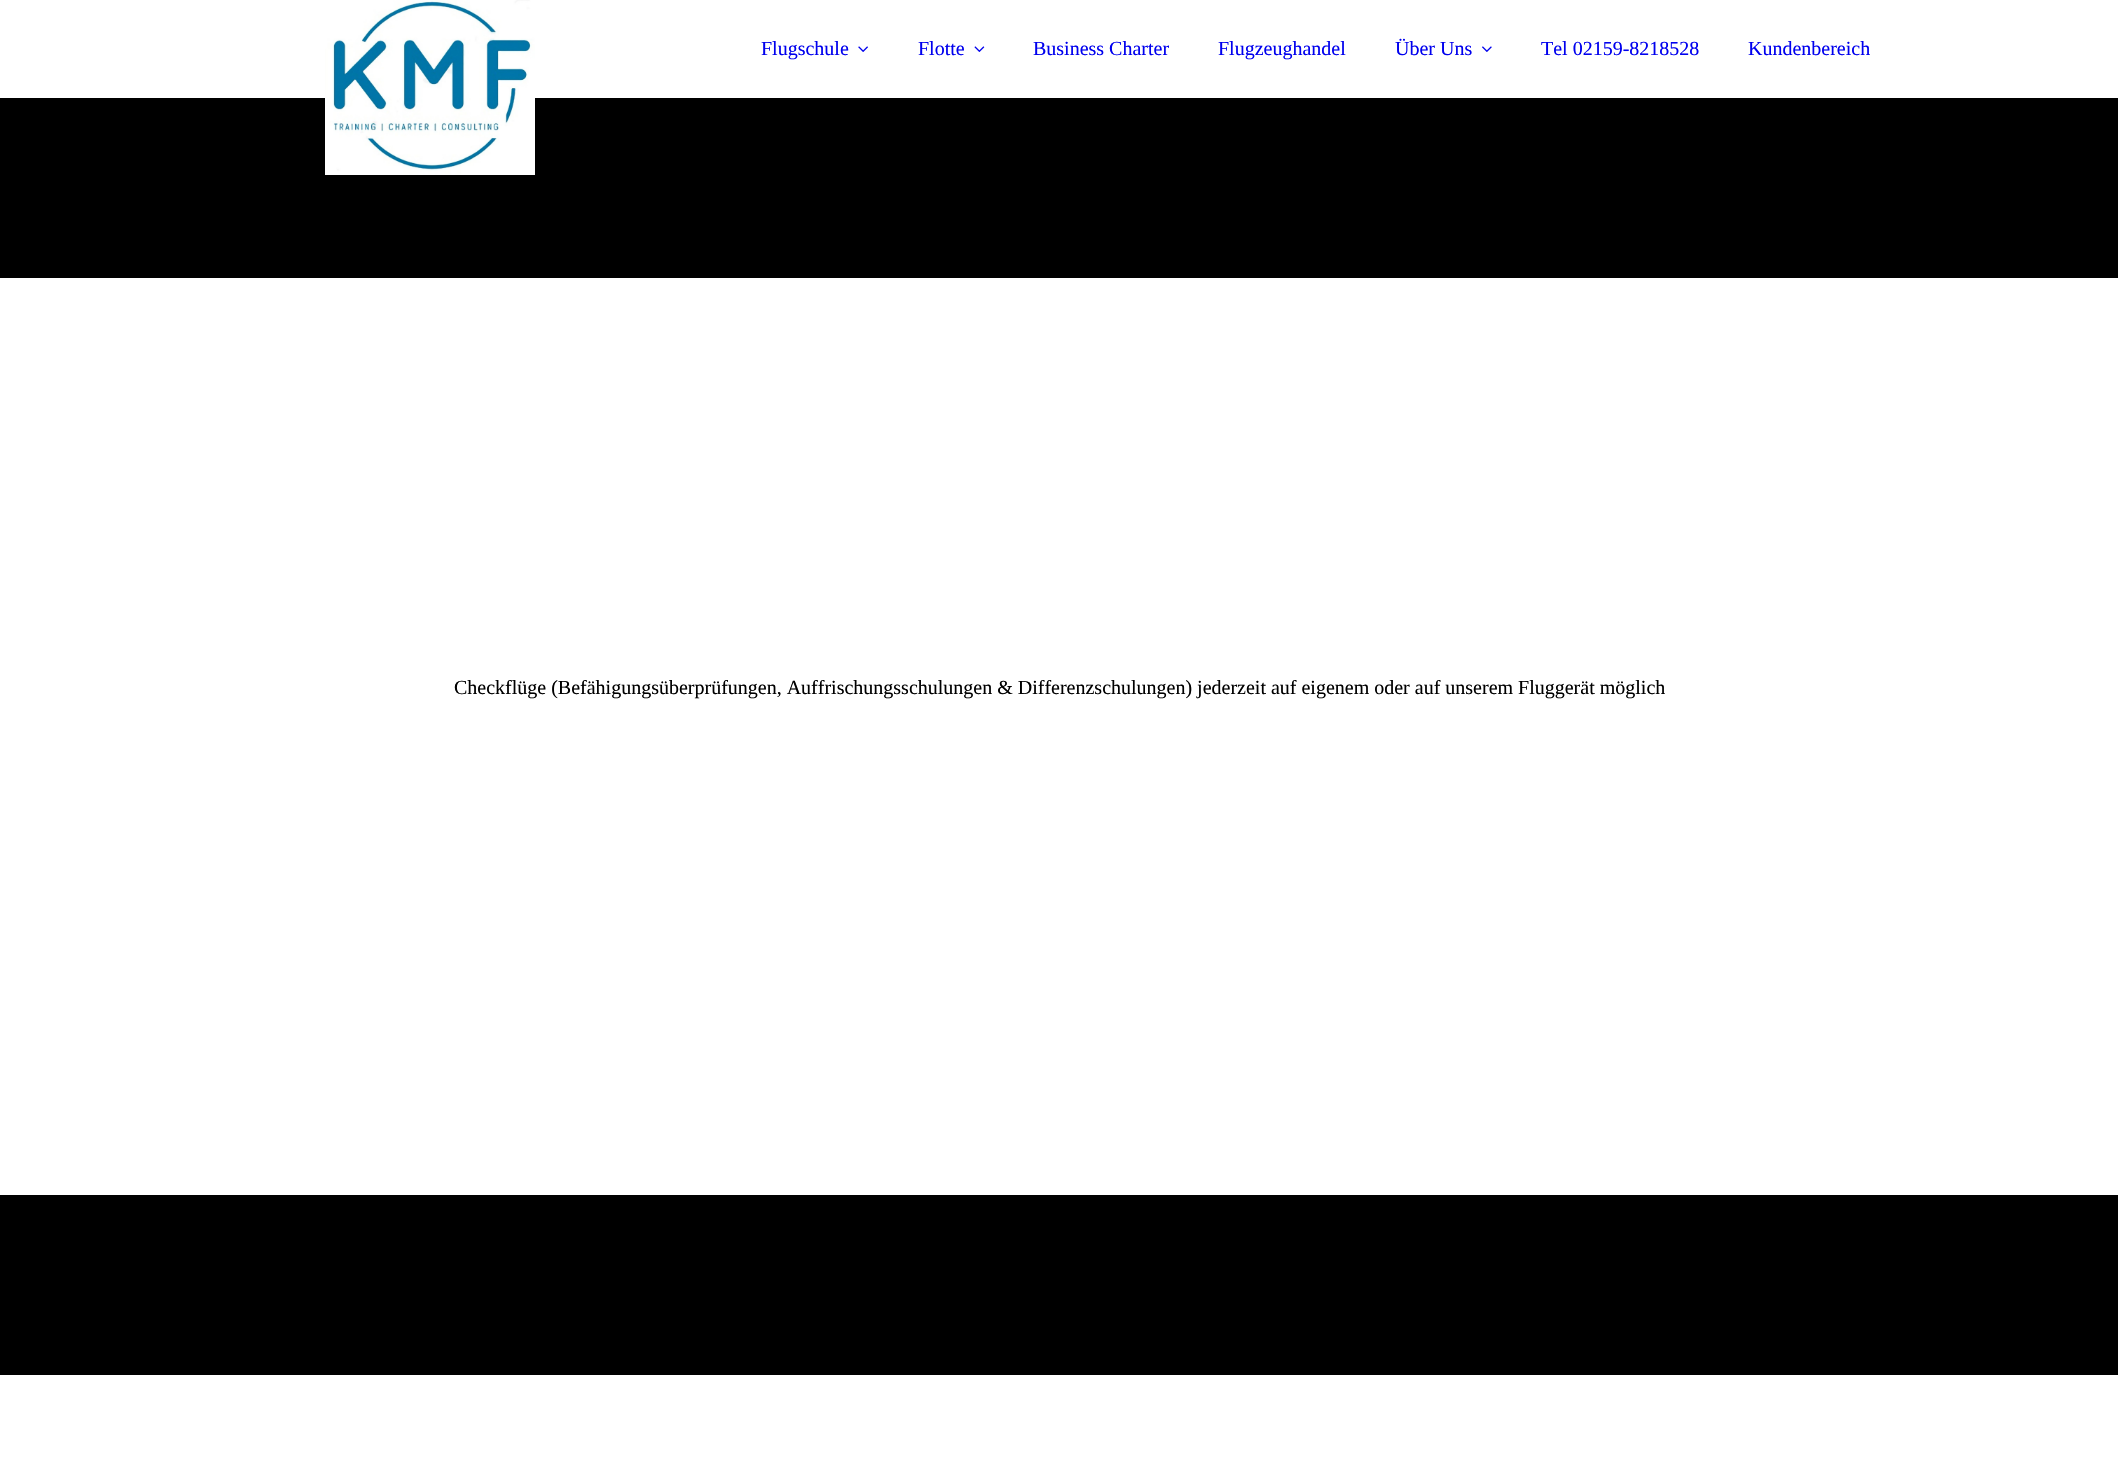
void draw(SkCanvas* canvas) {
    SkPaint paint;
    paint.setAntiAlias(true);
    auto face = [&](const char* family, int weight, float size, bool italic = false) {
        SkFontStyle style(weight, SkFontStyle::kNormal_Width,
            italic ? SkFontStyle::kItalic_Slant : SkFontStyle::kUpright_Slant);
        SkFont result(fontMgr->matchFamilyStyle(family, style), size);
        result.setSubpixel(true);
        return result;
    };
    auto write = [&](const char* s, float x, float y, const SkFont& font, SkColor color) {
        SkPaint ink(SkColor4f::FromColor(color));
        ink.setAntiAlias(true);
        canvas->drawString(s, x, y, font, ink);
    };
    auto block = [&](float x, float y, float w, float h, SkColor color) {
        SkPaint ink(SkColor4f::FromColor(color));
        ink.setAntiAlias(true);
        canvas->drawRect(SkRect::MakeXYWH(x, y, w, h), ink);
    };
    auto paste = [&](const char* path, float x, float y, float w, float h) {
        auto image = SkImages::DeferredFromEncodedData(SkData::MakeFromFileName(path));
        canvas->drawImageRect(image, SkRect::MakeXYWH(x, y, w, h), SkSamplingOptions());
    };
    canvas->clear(SK_ColorWHITE);
    block(0, 98, 2118, 180, SK_ColorBLACK);
    paste("pic1.png", 325, 0, 210, 175);
    auto kFont1 = face("Liberation Serif", 400, 20);
    write("Flugschule", 761, 55, kFont1, SkColorSetRGB(0, 0, 238));
    paste("pic2.png", 858, 46, 10, 6);
    write("Flotte", 918, 55, kFont1, SkColorSetRGB(0, 0, 238));
    paste("pic3.png", 974, 46, 11, 6);
    write("Business Charter", 1033, 55, kFont1, SkColorSetRGB(0, 0, 238));
    write("Flugzeughandel", 1218, 55, kFont1, SkColorSetRGB(0, 0, 238));
    write("Über Uns", 1395, 55, kFont1, SkColorSetRGB(0, 0, 238));
    paste("pic4.png", 1482, 46, 10, 6);
    write("Tel 02159-8218528", 1541, 55, kFont1, SkColorSetRGB(0, 0, 238));
    write("Kundenbereich", 1748, 55, kFont1, SkColorSetRGB(0, 0, 238));
    write("Checkflüge (Befähigungsüberprüfungen, Auffrischungsschulungen & Differenzschulungen) jederzeit auf eigenem oder auf unserem Fluggerät möglich", 454, 694, kFont1, SK_ColorBLACK);
    block(0, 1195, 2118, 180, SK_ColorBLACK);
}
